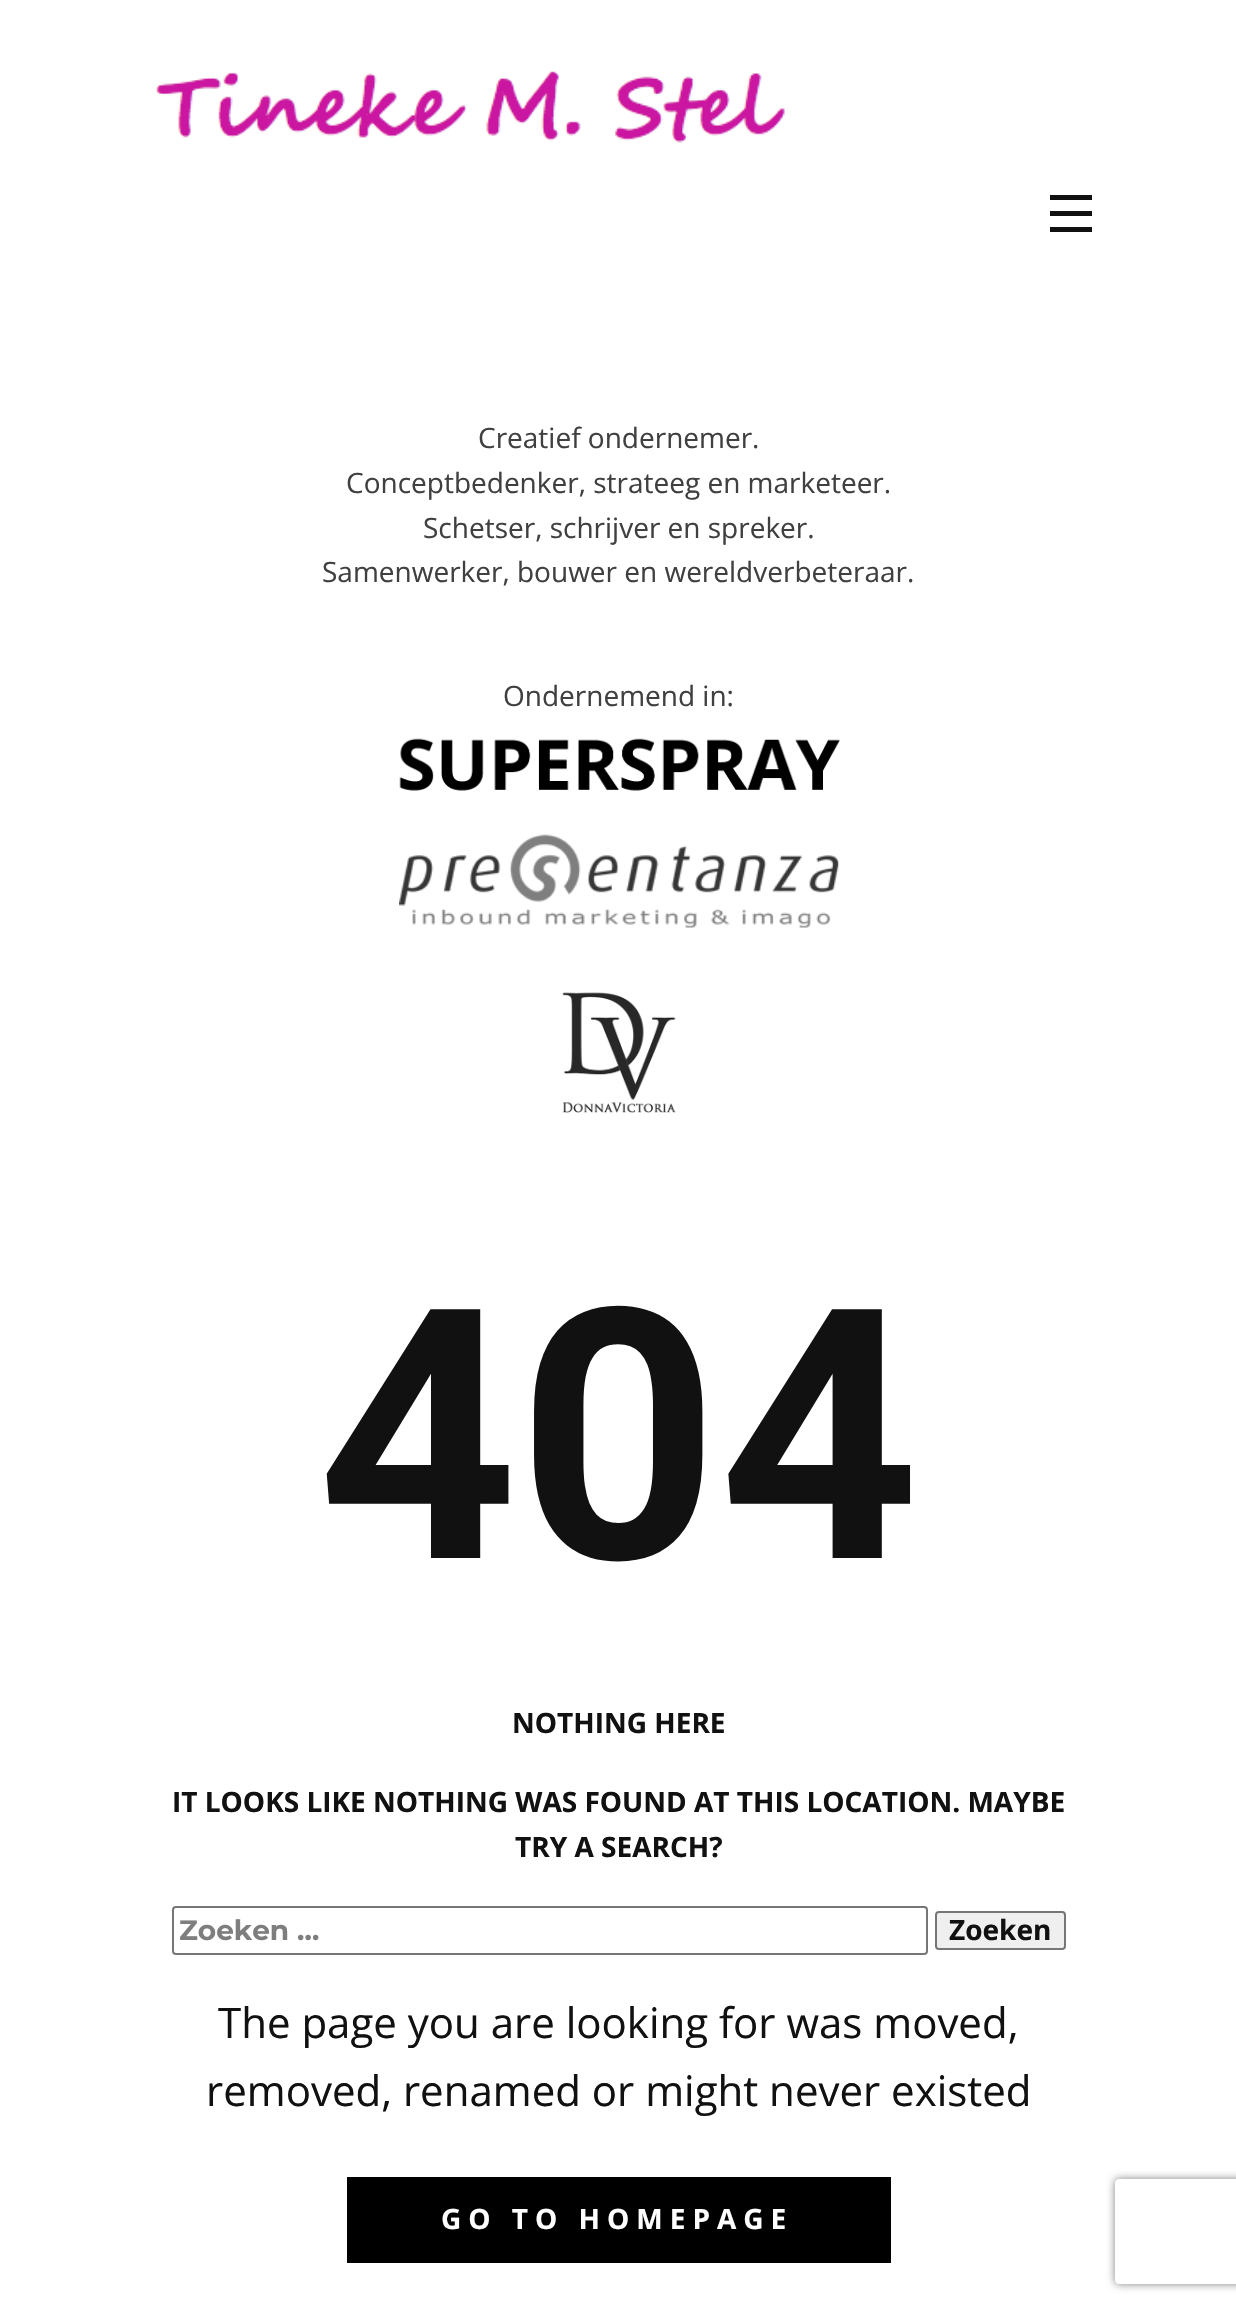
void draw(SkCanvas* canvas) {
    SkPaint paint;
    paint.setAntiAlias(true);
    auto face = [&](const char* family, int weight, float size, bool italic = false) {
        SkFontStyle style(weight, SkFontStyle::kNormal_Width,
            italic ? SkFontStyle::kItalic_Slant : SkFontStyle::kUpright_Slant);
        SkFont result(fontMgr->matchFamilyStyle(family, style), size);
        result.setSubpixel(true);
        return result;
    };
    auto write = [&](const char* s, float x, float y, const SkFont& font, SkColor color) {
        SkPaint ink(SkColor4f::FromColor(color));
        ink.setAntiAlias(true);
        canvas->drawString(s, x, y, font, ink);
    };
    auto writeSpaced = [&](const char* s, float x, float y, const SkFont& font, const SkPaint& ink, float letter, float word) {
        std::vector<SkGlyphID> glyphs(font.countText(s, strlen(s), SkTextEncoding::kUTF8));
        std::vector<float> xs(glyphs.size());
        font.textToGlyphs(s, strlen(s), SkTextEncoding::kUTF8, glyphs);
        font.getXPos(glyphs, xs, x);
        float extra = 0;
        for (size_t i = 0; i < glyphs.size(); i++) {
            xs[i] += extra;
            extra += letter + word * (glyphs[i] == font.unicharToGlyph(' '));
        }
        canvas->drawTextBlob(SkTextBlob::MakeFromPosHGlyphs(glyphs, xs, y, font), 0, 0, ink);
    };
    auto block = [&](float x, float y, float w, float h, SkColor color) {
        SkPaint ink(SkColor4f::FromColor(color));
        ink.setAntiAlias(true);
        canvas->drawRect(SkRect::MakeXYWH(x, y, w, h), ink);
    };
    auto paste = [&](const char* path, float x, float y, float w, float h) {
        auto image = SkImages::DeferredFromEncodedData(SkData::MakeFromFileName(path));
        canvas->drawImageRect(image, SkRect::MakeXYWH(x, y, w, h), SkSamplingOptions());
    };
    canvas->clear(SK_ColorWHITE);
    paste("pic1.png", 156, 71, 629, 72);
    block(1050, 195, 42, 5, SkColorSetRGB(17, 17, 17));
    block(1050, 211, 42, 5, SkColorSetRGB(17, 17, 17));
    block(1050, 227, 42, 5, SkColorSetRGB(17, 17, 17));
    auto kFont1 = face("Open Sans", 400, 28);
    write("Creatief ondernemer.", 478, 448, kFont1, SkColorSetRGB(64, 64, 64));
    write("Conceptbedenker, strateeg en marketeer.", 346, 493, kFont1, SkColorSetRGB(64, 64, 64));
    write("Schetser, schrijver en spreker.", 423, 538, kFont1, SkColorSetRGB(64, 64, 64));
    write("Samenwerker, bouwer en wereldverbeteraar.", 322, 582, kFont1, SkColorSetRGB(64, 64, 64));
    write("Ondernemend in:", 503, 706, kFont1, SkColorSetRGB(64, 64, 64));
    paste("pic2.png", 399, 738, 441, 53);
    paste("pic3.png", 399, 834, 440, 94);
    paste("pic4.png", 562, 992, 114, 121);
    auto kFont2 = face("Roboto", 700, 350);
    write("404", 317, 1558, kFont2, SkColorSetRGB(17, 17, 17));
    auto kFont3 = face("Open Sans", 700, 28);
    write("NOTHING HERE", 512, 1733, kFont3, SkColorSetRGB(17, 17, 17));
    write("IT LOOKS LIKE NOTHING WAS FOUND AT THIS LOCATION. MAYBE", 172, 1812, kFont3, SkColorSetRGB(17, 17, 17));
    write("TRY A SEARCH?", 515, 1857, kFont3, SkColorSetRGB(17, 17, 17));
    paint.setStyle(SkPaint::kStroke_Style);
    paint.setStrokeWidth(2);
    paint.setColor(SkColorSetRGB(118, 118, 118));
    canvas->drawRoundRect(SkRect::MakeXYWH(173, 1907, 754, 47), 3, 3, paint);
    auto kFont4 = face("Montserrat", 700, 28);
    write("Zoeken …", 179, 1940, kFont4, SkColorSetRGB(126, 126, 126));
    paint.setStyle(SkPaint::kFill_Style);
    paint.setColor(SkColorSetRGB(239, 239, 239));
    canvas->drawRoundRect(SkRect::MakeXYWH(936, 1912, 129, 37), 3, 3, paint);
    paint.setStyle(SkPaint::kStroke_Style);
    paint.setColor(SkColorSetRGB(118, 118, 118));
    canvas->drawRoundRect(SkRect::MakeXYWH(936, 1912, 129, 37), 3, 3, paint);
    write("Zoeken", 949, 1940, kFont3, SkColorSetRGB(17, 17, 17));
    auto kFont5 = face("Open Sans", 400, 42);
    write("The page you are looking for was moved,", 218, 2038, kFont5, SkColorSetRGB(17, 17, 17));
    write("removed, renamed or might never existed", 206, 2106, kFont5, SkColorSetRGB(17, 17, 17));
    block(347, 2177, 544, 86, SK_ColorBLACK);
    paint.setStyle(SkPaint::kFill_Style);
    paint.setColor(SK_ColorWHITE);
    writeSpaced("GO TO HOMEPAGE", 441, 2229, kFont3, paint, 7, 0);
    canvas->save();
    canvas->clipPath(SkPathBuilder(SkPathFillType::kEvenOdd).moveTo(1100, 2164).lineTo(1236, 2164).lineTo(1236, 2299).lineTo(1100, 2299).close().moveTo(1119, 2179).lineTo(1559, 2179).cubicTo(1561, 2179, 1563, 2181, 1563, 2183).lineTo(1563, 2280).cubicTo(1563, 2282, 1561, 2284, 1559, 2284).lineTo(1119, 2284).cubicTo(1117, 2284, 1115, 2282, 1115, 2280).lineTo(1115, 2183).cubicTo(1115, 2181, 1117, 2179, 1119, 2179).close().detach(), true);
    paint.setColor(SkColorSetRGB(128, 128, 128));
    paint.setMaskFilter(SkMaskFilter::MakeBlur(kNormal_SkBlurStyle, 4.5f));
    canvas->drawRoundRect(SkRect::MakeXYWH(1115, 2179, 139, 105), 4, 4, paint);
    paint.setMaskFilter(nullptr);
    canvas->restore();
}
